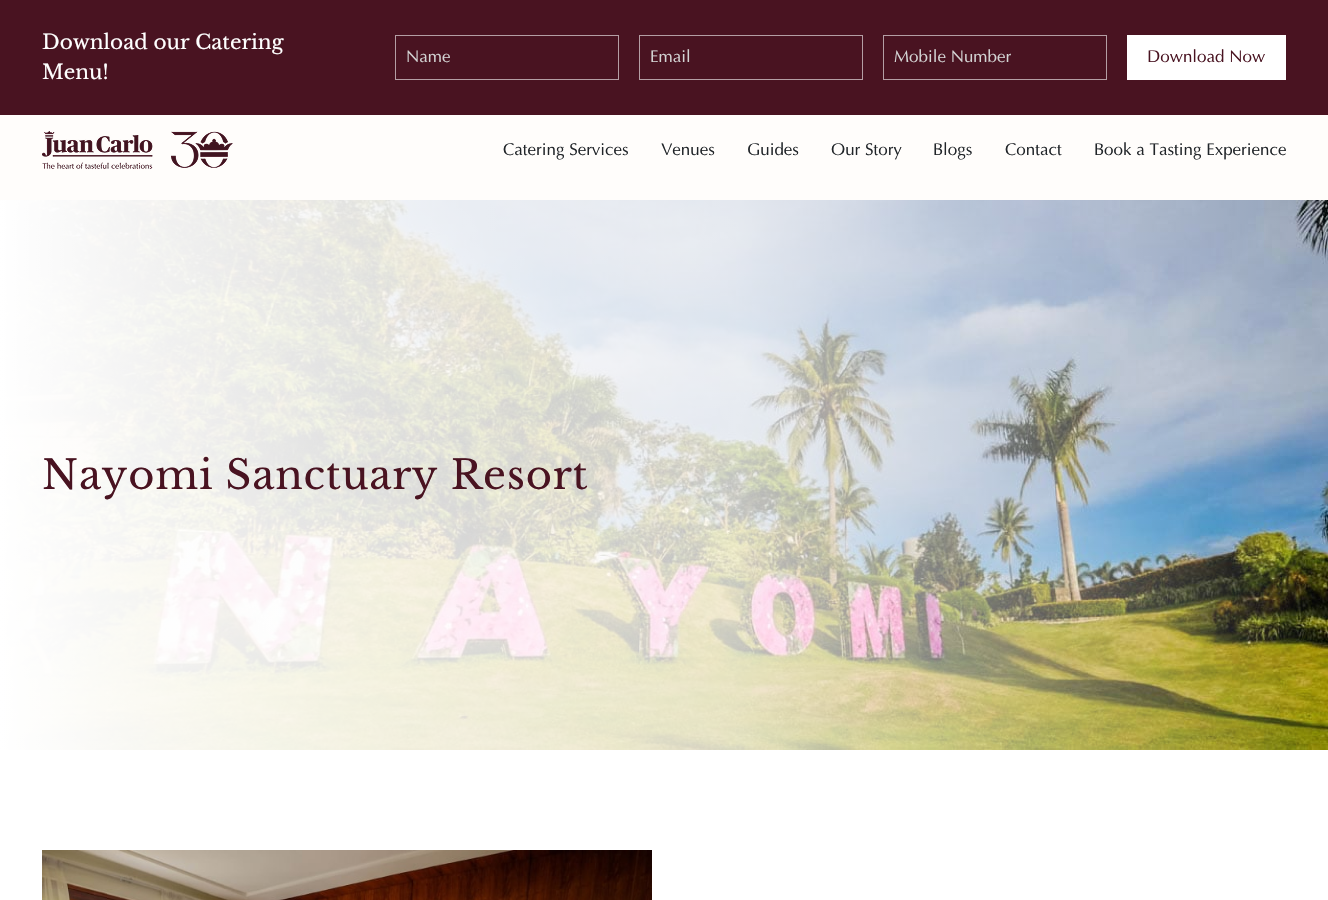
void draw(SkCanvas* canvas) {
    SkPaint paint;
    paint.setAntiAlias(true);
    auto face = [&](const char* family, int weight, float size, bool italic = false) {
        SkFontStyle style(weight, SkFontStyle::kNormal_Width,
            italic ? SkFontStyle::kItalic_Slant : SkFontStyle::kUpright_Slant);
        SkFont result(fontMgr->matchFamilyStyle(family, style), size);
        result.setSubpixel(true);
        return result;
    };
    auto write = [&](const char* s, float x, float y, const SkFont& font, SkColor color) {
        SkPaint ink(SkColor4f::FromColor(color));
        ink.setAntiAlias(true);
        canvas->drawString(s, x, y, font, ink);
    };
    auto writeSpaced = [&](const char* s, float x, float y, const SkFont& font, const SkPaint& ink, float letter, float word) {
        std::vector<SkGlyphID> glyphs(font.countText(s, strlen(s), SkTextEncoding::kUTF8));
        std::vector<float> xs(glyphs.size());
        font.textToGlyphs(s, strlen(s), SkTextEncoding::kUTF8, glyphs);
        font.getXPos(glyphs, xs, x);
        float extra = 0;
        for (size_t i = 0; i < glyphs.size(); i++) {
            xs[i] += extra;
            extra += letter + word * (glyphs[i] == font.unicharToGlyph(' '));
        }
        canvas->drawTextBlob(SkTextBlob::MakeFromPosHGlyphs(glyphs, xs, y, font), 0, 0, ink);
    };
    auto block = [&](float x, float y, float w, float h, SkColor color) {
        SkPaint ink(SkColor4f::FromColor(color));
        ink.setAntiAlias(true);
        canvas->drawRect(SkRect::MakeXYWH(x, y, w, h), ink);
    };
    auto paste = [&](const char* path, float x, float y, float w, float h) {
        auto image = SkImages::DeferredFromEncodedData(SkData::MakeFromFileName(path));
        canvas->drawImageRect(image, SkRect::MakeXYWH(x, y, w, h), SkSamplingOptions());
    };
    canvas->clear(SK_ColorWHITE);
    block(0, 0, 1328, 115, SkColorSetRGB(73, 19, 33));
    auto kFont1 = face("Libre Baskerville", 400, 20);
    write("Download our Catering", 42, 49, kFont1, SK_ColorWHITE);
    write("Menu!", 42, 79, kFont1, SK_ColorWHITE);
    paint.setStyle(SkPaint::kStroke_Style);
    paint.setStrokeWidth(1);
    paint.setColor(SkColorSetRGB(180, 158, 164));
    canvas->drawRect(SkRect::MakeXYWH(395.5f, 35.5f, 223, 44), paint);
    auto kFont2 = face("Optima", 400, 17);
    write("Name", 406, 62, kFont2, SkColorSetRGB(211, 211, 211));
    canvas->drawRect(SkRect::MakeXYWH(639.5f, 35.5f, 223, 44), paint);
    write("Email", 650, 62, kFont2, SkColorSetRGB(211, 211, 211));
    canvas->drawRect(SkRect::MakeXYWH(883.5f, 35.5f, 223, 44), paint);
    write("Mobile Number", 894, 62, kFont2, SkColorSetRGB(211, 211, 211));
    block(1127, 35, 159, 45, SK_ColorWHITE);
    write("Download Now", 1147, 62, kFont2, SkColorSetRGB(73, 19, 33));
    block(0, 115, 1328, 85, SkColorSetRGB(255, 253, 251));
    paste("pic1.png", 42, 131, 191, 38);
    write("Catering Services", 503, 155, kFont2, SkColorSetRGB(33, 37, 41));
    write("Venues", 661, 155, kFont2, SkColorSetRGB(33, 37, 41));
    write("Guides", 747, 155, kFont2, SkColorSetRGB(33, 37, 41));
    write("Our Story", 831, 155, kFont2, SkColorSetRGB(33, 37, 41));
    write("Blogs", 933, 155, kFont2, SkColorSetRGB(33, 37, 41));
    write("Contact", 1005, 155, kFont2, SkColorSetRGB(33, 37, 41));
    write("Book a Tasting Experience", 1094, 155, kFont2, SkColorSetRGB(33, 37, 41));
    paste("pic2.png", 0, 200, 1328, 550);
    auto kFont3 = face("Libre Baskerville", 400, 40);
    paint.setStyle(SkPaint::kFill_Style);
    paint.setColor(SkColorSetRGB(73, 19, 33));
    writeSpaced("Nayomi Sanctuary Resort", 42, 489, kFont3, paint, 0.8f, 0);
    paste("pic3.png", 42, 850, 610, 50);
}
